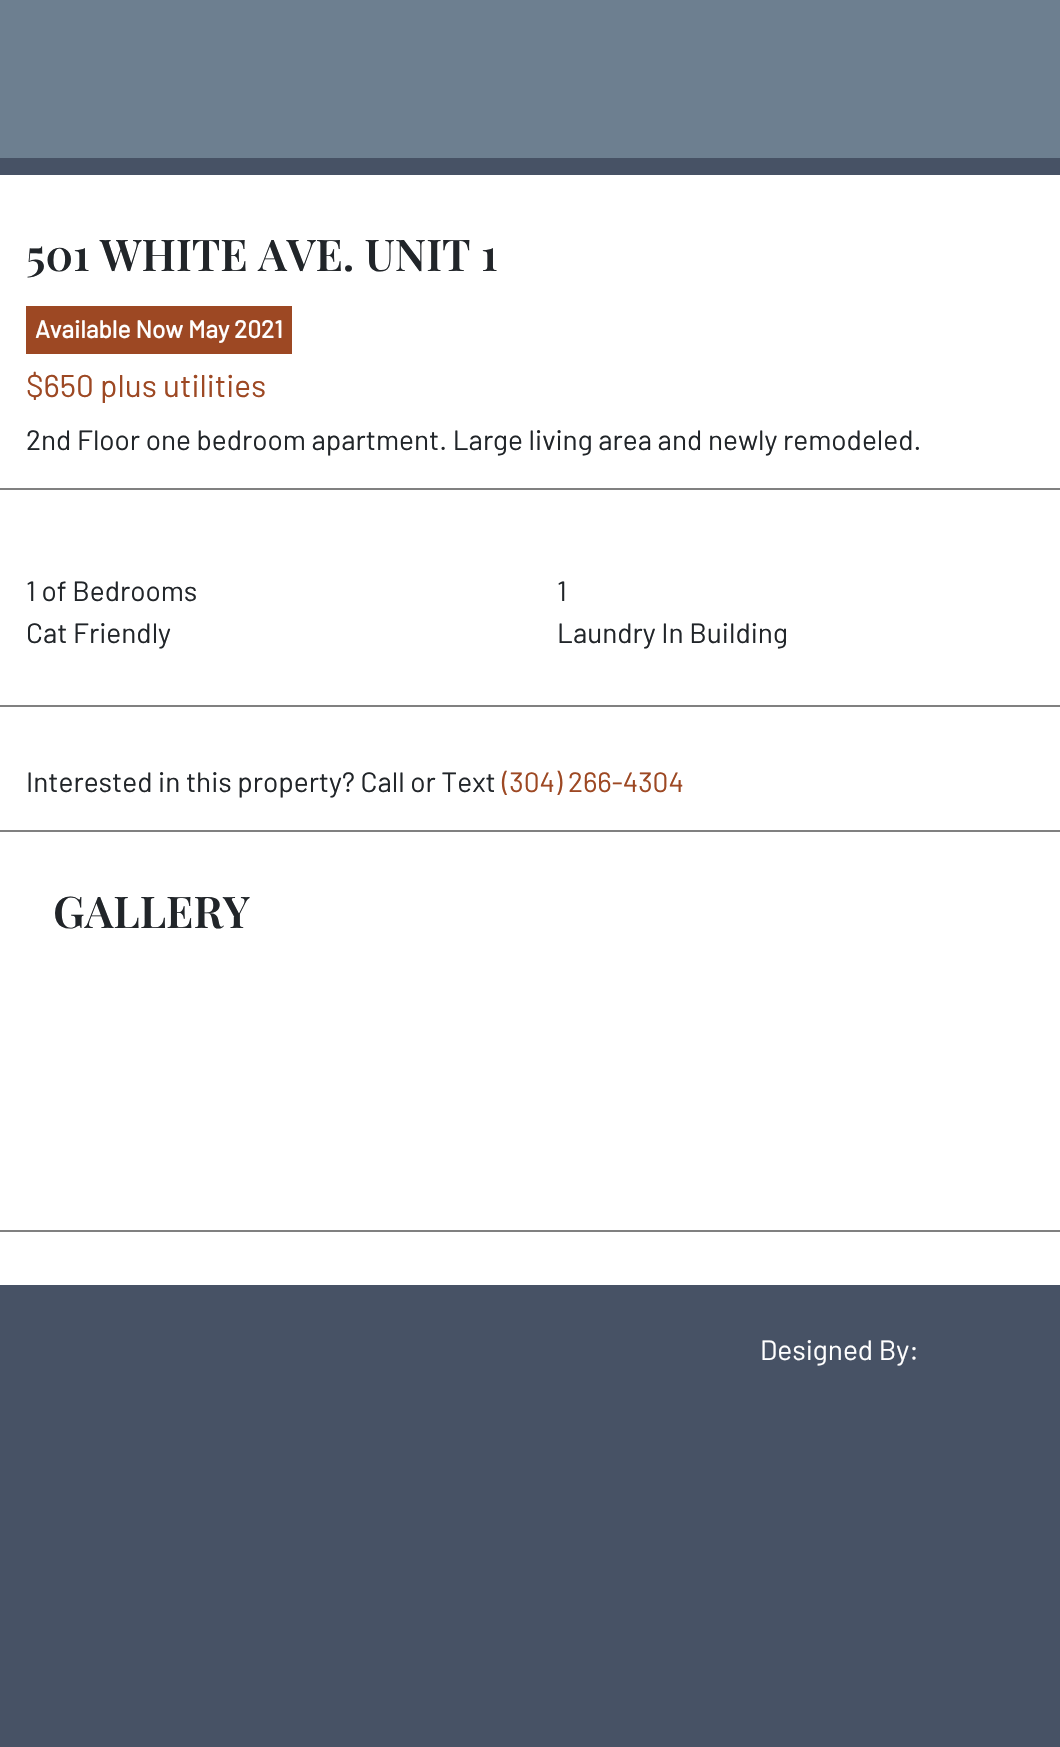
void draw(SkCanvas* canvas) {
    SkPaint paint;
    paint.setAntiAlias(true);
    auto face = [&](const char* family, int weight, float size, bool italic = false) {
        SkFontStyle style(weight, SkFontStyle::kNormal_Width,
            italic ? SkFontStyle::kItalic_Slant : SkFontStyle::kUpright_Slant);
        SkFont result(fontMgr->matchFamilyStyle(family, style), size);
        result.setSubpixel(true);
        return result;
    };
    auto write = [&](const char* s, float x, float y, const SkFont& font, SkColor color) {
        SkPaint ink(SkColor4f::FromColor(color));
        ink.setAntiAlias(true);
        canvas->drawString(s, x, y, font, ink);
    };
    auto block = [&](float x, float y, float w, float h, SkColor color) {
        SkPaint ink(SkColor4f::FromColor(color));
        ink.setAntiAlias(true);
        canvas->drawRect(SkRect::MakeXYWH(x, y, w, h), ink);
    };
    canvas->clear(SkColorSetRGB(71, 82, 101));
    block(0, 0, 1060, 158, SkColorSetRGB(109, 127, 144));
    block(0, 175, 1060, 1110, SK_ColorWHITE);
    auto kFont1 = face("Playfair Display", 600, 43.75f);
    write("501 WHITE AVE. UNIT 1", 26, 271, kFont1, SkColorSetRGB(33, 37, 41));
    block(26, 306, 266, 48, SkColorSetRGB(157, 72, 35));
    auto kFont2 = face("Barlow", 700, 24.5f);
    write("Available Now May 2021", 35, 338, kFont2, SK_ColorWHITE);
    auto kFont3 = face("Barlow", 400, 31.5f);
    write("$650 plus utilities", 26, 397, kFont3, SkColorSetRGB(157, 72, 35));
    auto kFont4 = face("Barlow", 400, 28);
    write("2nd Floor one bedroom apartment. Large living area and newly remodeled.", 26, 450, kFont4, SkColorSetRGB(33, 37, 41));
    block(0, 488, 1060, 2, SkColorSetRGB(128, 128, 128));
    write("1 of Bedrooms", 26, 601, kFont4, SkColorSetRGB(33, 37, 41));
    write("1", 557, 601, kFont4, SkColorSetRGB(33, 37, 41));
    write("Cat Friendly", 26, 643, kFont4, SkColorSetRGB(33, 37, 41));
    write("Laundry In Building", 557, 643, kFont4, SkColorSetRGB(33, 37, 41));
    block(0, 705, 1060, 2, SkColorSetRGB(128, 128, 128));
    write("Interested in this property? Call or Text", 26, 792, kFont4, SkColorSetRGB(33, 37, 41));
    write("(304) 266-4304", 502, 792, kFont4, SkColorSetRGB(157, 72, 35));
    block(0, 830, 1060, 2, SkColorSetRGB(128, 128, 128));
    block(0, 1230, 1060, 2, SkColorSetRGB(128, 128, 128));
    write("GALLERY", 53, 928, kFont1, SkColorSetRGB(33, 37, 41));
    write("Designed By:", 760, 1360, kFont4, SK_ColorWHITE);
}
